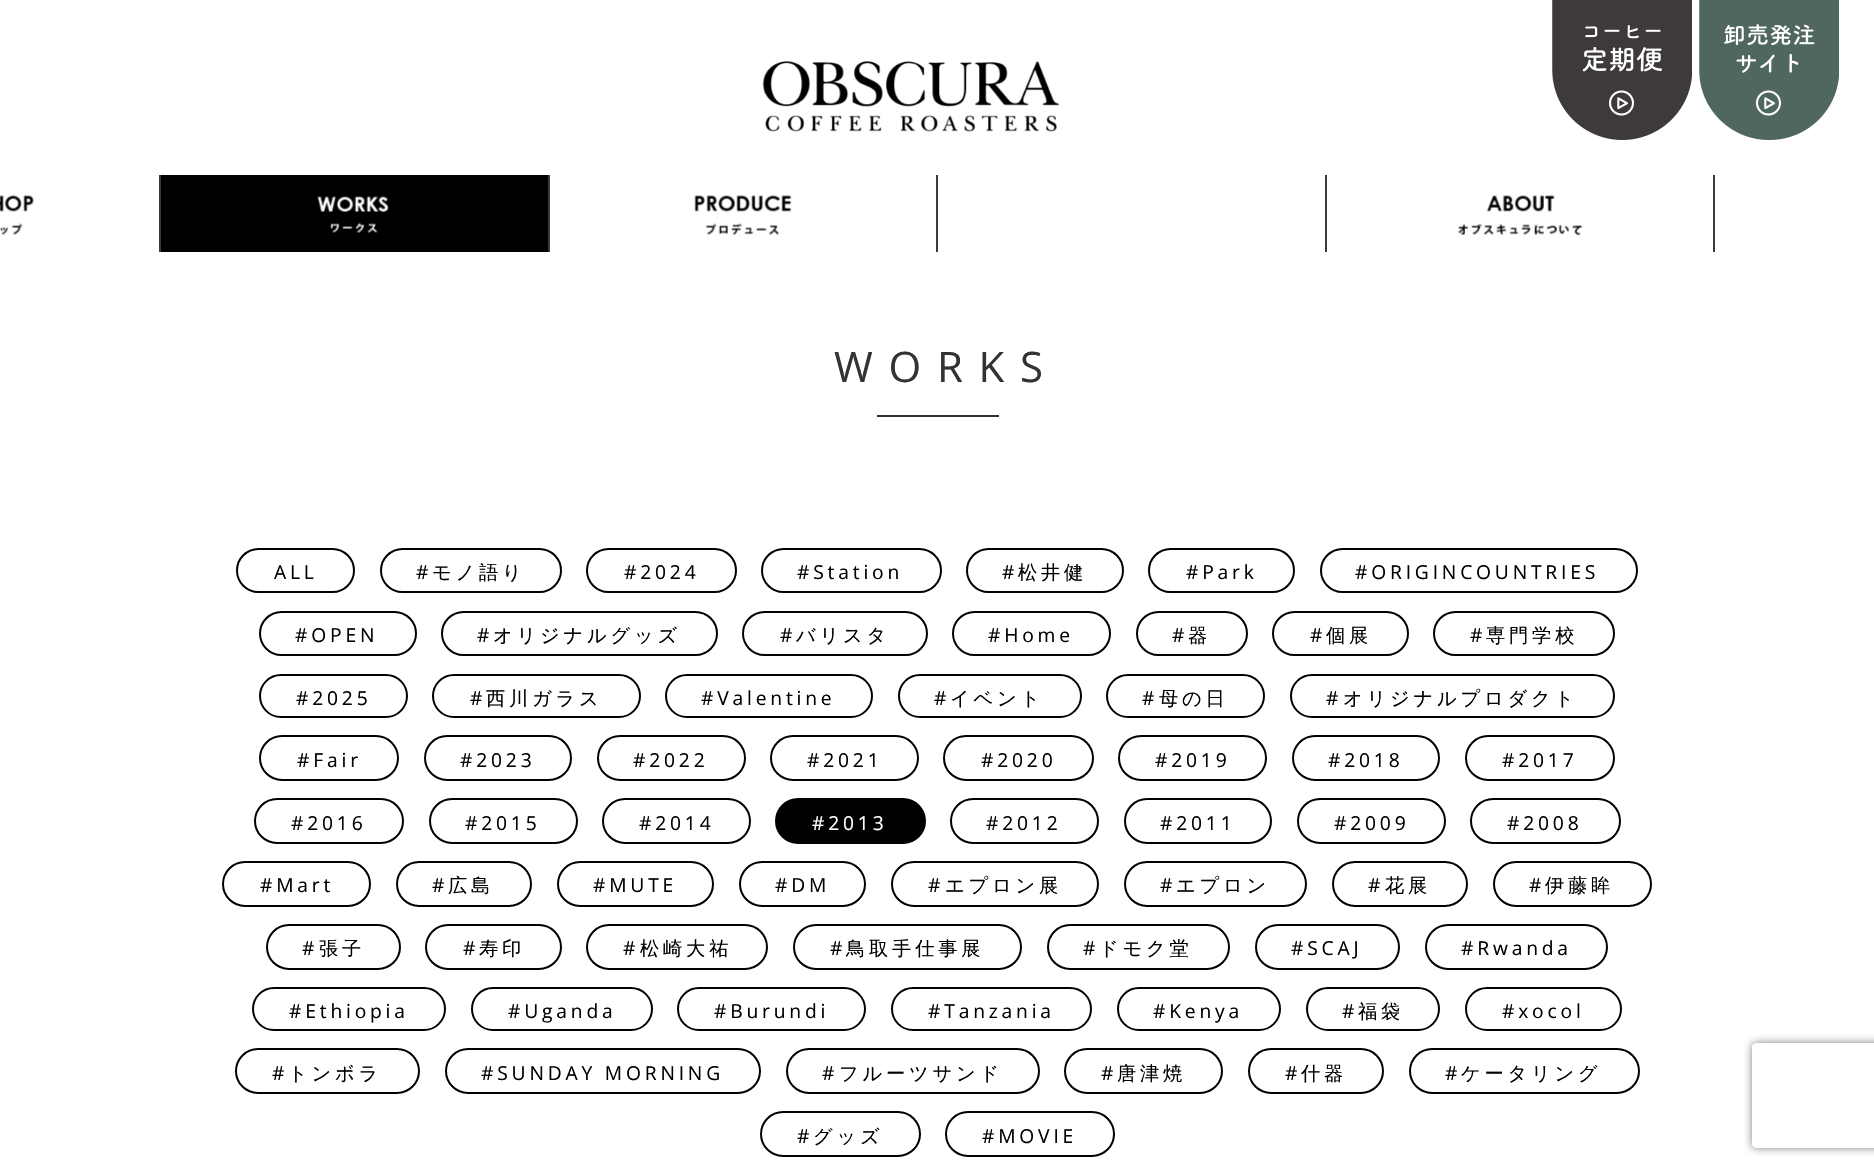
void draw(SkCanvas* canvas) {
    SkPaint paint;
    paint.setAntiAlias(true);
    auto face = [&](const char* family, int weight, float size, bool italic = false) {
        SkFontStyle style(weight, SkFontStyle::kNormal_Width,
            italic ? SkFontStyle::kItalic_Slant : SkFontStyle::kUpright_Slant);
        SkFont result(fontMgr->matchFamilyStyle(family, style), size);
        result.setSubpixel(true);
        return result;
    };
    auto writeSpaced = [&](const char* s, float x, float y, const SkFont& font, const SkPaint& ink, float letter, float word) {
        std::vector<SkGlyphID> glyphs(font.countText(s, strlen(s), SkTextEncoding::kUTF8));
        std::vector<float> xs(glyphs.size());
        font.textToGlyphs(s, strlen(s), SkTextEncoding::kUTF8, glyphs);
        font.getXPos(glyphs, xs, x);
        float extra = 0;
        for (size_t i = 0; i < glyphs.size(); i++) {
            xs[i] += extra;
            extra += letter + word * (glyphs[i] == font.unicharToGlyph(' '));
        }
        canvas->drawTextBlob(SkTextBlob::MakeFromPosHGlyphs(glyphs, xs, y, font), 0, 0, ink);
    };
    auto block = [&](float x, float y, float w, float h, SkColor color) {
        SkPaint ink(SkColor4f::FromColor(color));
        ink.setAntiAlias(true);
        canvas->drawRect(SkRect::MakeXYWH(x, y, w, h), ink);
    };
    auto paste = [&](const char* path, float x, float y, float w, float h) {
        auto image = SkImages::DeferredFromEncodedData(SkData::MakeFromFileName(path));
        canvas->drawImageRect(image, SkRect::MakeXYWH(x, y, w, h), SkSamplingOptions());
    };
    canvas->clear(SK_ColorWHITE);
    paste("pic1.png", 1552, 0, 140, 140);
    paste("pic2.png", 1699, 0, 140, 140);
    paste("pic3.png", 0, 195, 34, 40);
    block(161, 175, 387, 77, SK_ColorBLACK);
    block(159, 175, 2, 77, SkColorSetRGB(62, 58, 57));
    paste("pic4.png", 317, 196, 72, 37);
    block(548, 175, 2, 77, SkColorSetRGB(62, 58, 57));
    paste("pic5.png", 694, 195, 98, 40);
    block(936, 175, 2, 77, SkColorSetRGB(62, 58, 57));
    block(1325, 175, 2, 77, SkColorSetRGB(62, 58, 57));
    paste("pic6.png", 1458, 195, 125, 41);
    block(1713, 175, 2, 77, SkColorSetRGB(62, 58, 57));
    paste("pic7.png", 762, 61, 298, 71);
    auto kFont1 = face("Open Sans", 400, 42);
    paint.setColor(SkColorSetRGB(51, 51, 51));
    writeSpaced("WORKS", 834, 382, kFont1, paint, 15.75f, 0);
    block(877, 415, 122, 2, SkColorSetRGB(51, 51, 51));
    paint.setStyle(SkPaint::kStroke_Style);
    paint.setStrokeWidth(2);
    paint.setColor(SK_ColorBLACK);
    canvas->drawRoundRect(SkRect::MakeXYWH(237, 549, 117, 43), 21.5f, 21.5f, paint);
    auto kFont2 = face("Open Sans", 400, 19.25f);
    paint.setStyle(SkPaint::kFill_Style);
    writeSpaced("ALL", 274, 579, kFont2, paint, 3.8f, 0);
    paint.setStyle(SkPaint::kStroke_Style);
    canvas->drawRoundRect(SkRect::MakeXYWH(381, 549, 180, 43), 21.5f, 21.5f, paint);
    paint.setStyle(SkPaint::kFill_Style);
    writeSpaced("#", 416, 579, kFont2, paint, 3.8f, 0);
    auto kFont3 = face("WenQuanYi Zen Hei", 500, 19.25f);
    writeSpaced("モノ語り", 432, 579, kFont3, paint, 3.8f, 0);
    paint.setStyle(SkPaint::kStroke_Style);
    canvas->drawRoundRect(SkRect::MakeXYWH(587, 549, 149, 43), 21.5f, 21.5f, paint);
    paint.setStyle(SkPaint::kFill_Style);
    writeSpaced("#2024", 624, 579, kFont2, paint, 3.8f, 0);
    paint.setStyle(SkPaint::kStroke_Style);
    canvas->drawRoundRect(SkRect::MakeXYWH(762, 549, 179, 43), 21.5f, 21.5f, paint);
    paint.setStyle(SkPaint::kFill_Style);
    writeSpaced("#Station", 797, 579, kFont2, paint, 3.8f, 0);
    paint.setStyle(SkPaint::kStroke_Style);
    canvas->drawRoundRect(SkRect::MakeXYWH(967, 549, 156, 43), 21.5f, 21.5f, paint);
    paint.setStyle(SkPaint::kFill_Style);
    writeSpaced("#", 1002, 579, kFont2, paint, 3.8f, 0);
    writeSpaced("松井健", 1018, 579, kFont3, paint, 3.8f, 0);
    paint.setStyle(SkPaint::kStroke_Style);
    canvas->drawRoundRect(SkRect::MakeXYWH(1149, 549, 145, 43), 21.5f, 21.5f, paint);
    paint.setStyle(SkPaint::kFill_Style);
    writeSpaced("#Park", 1186, 579, kFont2, paint, 3.8f, 0);
    paint.setStyle(SkPaint::kStroke_Style);
    canvas->drawRoundRect(SkRect::MakeXYWH(1321, 549, 316, 43), 21.5f, 21.5f, paint);
    paint.setStyle(SkPaint::kFill_Style);
    writeSpaced("#ORIGINCOUNTRIES", 1355, 579, kFont2, paint, 3.8f, 0);
    paint.setStyle(SkPaint::kStroke_Style);
    canvas->drawRoundRect(SkRect::MakeXYWH(260, 612, 156, 43), 21.5f, 21.5f, paint);
    paint.setStyle(SkPaint::kFill_Style);
    writeSpaced("#OPEN", 295, 642, kFont2, paint, 3.8f, 0);
    paint.setStyle(SkPaint::kStroke_Style);
    canvas->drawRoundRect(SkRect::MakeXYWH(442, 612, 275, 43), 21.5f, 21.5f, paint);
    paint.setStyle(SkPaint::kFill_Style);
    writeSpaced("#", 477, 642, kFont2, paint, 3.8f, 0);
    writeSpaced("オリジナルグッズ", 493, 642, kFont3, paint, 3.8f, 0);
    paint.setStyle(SkPaint::kStroke_Style);
    canvas->drawRoundRect(SkRect::MakeXYWH(743, 612, 184, 43), 21.5f, 21.5f, paint);
    paint.setStyle(SkPaint::kFill_Style);
    writeSpaced("#", 780, 642, kFont2, paint, 3.8f, 0);
    writeSpaced("バリスタ", 796, 642, kFont3, paint, 3.8f, 0);
    paint.setStyle(SkPaint::kStroke_Style);
    canvas->drawRoundRect(SkRect::MakeXYWH(953, 612, 157, 43), 21.5f, 21.5f, paint);
    paint.setStyle(SkPaint::kFill_Style);
    writeSpaced("#Home", 988, 642, kFont2, paint, 3.8f, 0);
    paint.setStyle(SkPaint::kStroke_Style);
    canvas->drawRoundRect(SkRect::MakeXYWH(1137, 612, 110, 43), 21.5f, 21.5f, paint);
    paint.setStyle(SkPaint::kFill_Style);
    writeSpaced("#", 1172, 642, kFont2, paint, 3.8f, 0);
    writeSpaced("器", 1188, 642, kFont3, paint, 3.8f, 0);
    paint.setStyle(SkPaint::kStroke_Style);
    canvas->drawRoundRect(SkRect::MakeXYWH(1273, 612, 135, 43), 21.5f, 21.5f, paint);
    paint.setStyle(SkPaint::kFill_Style);
    writeSpaced("#", 1310, 642, kFont2, paint, 3.8f, 0);
    writeSpaced("個展", 1326, 642, kFont3, paint, 3.8f, 0);
    paint.setStyle(SkPaint::kStroke_Style);
    canvas->drawRoundRect(SkRect::MakeXYWH(1434, 612, 180, 43), 21.5f, 21.5f, paint);
    paint.setStyle(SkPaint::kFill_Style);
    writeSpaced("#", 1470, 642, kFont2, paint, 3.8f, 0);
    writeSpaced("専門学校", 1486, 642, kFont3, paint, 3.8f, 0);
    paint.setStyle(SkPaint::kStroke_Style);
    canvas->drawRoundRect(SkRect::MakeXYWH(260, 675, 147, 42), 21, 21, paint);
    paint.setStyle(SkPaint::kFill_Style);
    writeSpaced("#2025", 296, 705, kFont2, paint, 3.8f, 0);
    paint.setStyle(SkPaint::kStroke_Style);
    canvas->drawRoundRect(SkRect::MakeXYWH(433, 675, 207, 42), 21, 21, paint);
    paint.setStyle(SkPaint::kFill_Style);
    writeSpaced("#", 470, 705, kFont2, paint, 3.8f, 0);
    writeSpaced("西川ガラス", 486, 705, kFont3, paint, 3.8f, 0);
    paint.setStyle(SkPaint::kStroke_Style);
    canvas->drawRoundRect(SkRect::MakeXYWH(666, 675, 206, 42), 21, 21, paint);
    paint.setStyle(SkPaint::kFill_Style);
    writeSpaced("#Valentine", 701, 705, kFont2, paint, 3.8f, 0);
    paint.setStyle(SkPaint::kStroke_Style);
    canvas->drawRoundRect(SkRect::MakeXYWH(899, 675, 182, 42), 21, 21, paint);
    paint.setStyle(SkPaint::kFill_Style);
    writeSpaced("#", 934, 705, kFont2, paint, 3.8f, 0);
    writeSpaced("イベント", 950, 705, kFont3, paint, 3.8f, 0);
    paint.setStyle(SkPaint::kStroke_Style);
    canvas->drawRoundRect(SkRect::MakeXYWH(1107, 675, 157, 42), 21, 21, paint);
    paint.setStyle(SkPaint::kFill_Style);
    writeSpaced("#", 1142, 705, kFont2, paint, 3.8f, 0);
    writeSpaced("母の日", 1159, 705, kFont3, paint, 3.8f, 0);
    paint.setStyle(SkPaint::kStroke_Style);
    canvas->drawRoundRect(SkRect::MakeXYWH(1291, 675, 323, 42), 21, 21, paint);
    paint.setStyle(SkPaint::kFill_Style);
    writeSpaced("#", 1326, 705, kFont2, paint, 3.8f, 0);
    writeSpaced("オリジナルプロダクト", 1343, 705, kFont3, paint, 3.8f, 0);
    paint.setStyle(SkPaint::kStroke_Style);
    canvas->drawRoundRect(SkRect::MakeXYWH(260, 736, 138, 44), 22, 22, paint);
    paint.setStyle(SkPaint::kFill_Style);
    writeSpaced("#Fair", 297, 767, kFont2, paint, 3.8f, 0);
    paint.setStyle(SkPaint::kStroke_Style);
    canvas->drawRoundRect(SkRect::MakeXYWH(425, 736, 146, 44), 22, 22, paint);
    paint.setStyle(SkPaint::kFill_Style);
    writeSpaced("#2023", 460, 767, kFont2, paint, 3.8f, 0);
    paint.setStyle(SkPaint::kStroke_Style);
    canvas->drawRoundRect(SkRect::MakeXYWH(598, 736, 147, 44), 22, 22, paint);
    paint.setStyle(SkPaint::kFill_Style);
    writeSpaced("#2022", 633, 767, kFont2, paint, 3.8f, 0);
    paint.setStyle(SkPaint::kStroke_Style);
    canvas->drawRoundRect(SkRect::MakeXYWH(771, 736, 147, 44), 22, 22, paint);
    paint.setStyle(SkPaint::kFill_Style);
    writeSpaced("#2021", 807, 767, kFont2, paint, 3.8f, 0);
    paint.setStyle(SkPaint::kStroke_Style);
    canvas->drawRoundRect(SkRect::MakeXYWH(944, 736, 149, 44), 22, 22, paint);
    paint.setStyle(SkPaint::kFill_Style);
    writeSpaced("#2020", 981, 767, kFont2, paint, 3.8f, 0);
    paint.setStyle(SkPaint::kStroke_Style);
    canvas->drawRoundRect(SkRect::MakeXYWH(1119, 736, 147, 44), 22, 22, paint);
    paint.setStyle(SkPaint::kFill_Style);
    writeSpaced("#2019", 1155, 767, kFont2, paint, 3.8f, 0);
    paint.setStyle(SkPaint::kStroke_Style);
    canvas->drawRoundRect(SkRect::MakeXYWH(1293, 736, 146, 44), 22, 22, paint);
    paint.setStyle(SkPaint::kFill_Style);
    writeSpaced("#2018", 1328, 767, kFont2, paint, 3.8f, 0);
    paint.setStyle(SkPaint::kStroke_Style);
    canvas->drawRoundRect(SkRect::MakeXYWH(1466, 736, 148, 44), 22, 22, paint);
    paint.setStyle(SkPaint::kFill_Style);
    writeSpaced("#2017", 1502, 767, kFont2, paint, 3.8f, 0);
    paint.setStyle(SkPaint::kStroke_Style);
    canvas->drawRoundRect(SkRect::MakeXYWH(255, 799, 148, 44), 22, 22, paint);
    paint.setStyle(SkPaint::kFill_Style);
    writeSpaced("#2016", 291, 830, kFont2, paint, 3.8f, 0);
    paint.setStyle(SkPaint::kStroke_Style);
    canvas->drawRoundRect(SkRect::MakeXYWH(430, 799, 147, 44), 22, 22, paint);
    paint.setStyle(SkPaint::kFill_Style);
    writeSpaced("#2015", 465, 830, kFont2, paint, 3.8f, 0);
    paint.setStyle(SkPaint::kStroke_Style);
    canvas->drawRoundRect(SkRect::MakeXYWH(603, 799, 147, 44), 22, 22, paint);
    paint.setStyle(SkPaint::kFill_Style);
    writeSpaced("#2014", 639, 830, kFont2, paint, 3.8f, 0);
    canvas->drawRoundRect(SkRect::MakeXYWH(776, 799, 149, 44), 22, 22, paint);
    paint.setStyle(SkPaint::kStroke_Style);
    canvas->drawRoundRect(SkRect::MakeXYWH(776, 799, 149, 44), 22, 22, paint);
    paint.setStyle(SkPaint::kFill_Style);
    paint.setColor(SK_ColorWHITE);
    writeSpaced("#2013", 812, 830, kFont2, paint, 3.8f, 0);
    paint.setStyle(SkPaint::kStroke_Style);
    paint.setColor(SK_ColorBLACK);
    canvas->drawRoundRect(SkRect::MakeXYWH(951, 799, 147, 44), 22, 22, paint);
    paint.setStyle(SkPaint::kFill_Style);
    writeSpaced("#2012", 986, 830, kFont2, paint, 3.8f, 0);
    paint.setStyle(SkPaint::kStroke_Style);
    canvas->drawRoundRect(SkRect::MakeXYWH(1125, 799, 146, 44), 22, 22, paint);
    paint.setStyle(SkPaint::kFill_Style);
    writeSpaced("#2011", 1160, 830, kFont2, paint, 3.8f, 0);
    paint.setStyle(SkPaint::kStroke_Style);
    canvas->drawRoundRect(SkRect::MakeXYWH(1298, 799, 147, 44), 22, 22, paint);
    paint.setStyle(SkPaint::kFill_Style);
    writeSpaced("#2009", 1334, 830, kFont2, paint, 3.8f, 0);
    paint.setStyle(SkPaint::kStroke_Style);
    canvas->drawRoundRect(SkRect::MakeXYWH(1471, 799, 149, 44), 22, 22, paint);
    paint.setStyle(SkPaint::kFill_Style);
    writeSpaced("#2008", 1507, 830, kFont2, paint, 3.8f, 0);
    paint.setStyle(SkPaint::kStroke_Style);
    canvas->drawRoundRect(SkRect::MakeXYWH(223, 862, 147, 44), 22, 22, paint);
    paint.setStyle(SkPaint::kFill_Style);
    writeSpaced("#Mart", 260, 892, kFont2, paint, 3.8f, 0);
    paint.setStyle(SkPaint::kStroke_Style);
    canvas->drawRoundRect(SkRect::MakeXYWH(397, 862, 134, 44), 22, 22, paint);
    paint.setStyle(SkPaint::kFill_Style);
    writeSpaced("#", 432, 892, kFont2, paint, 3.8f, 0);
    writeSpaced("広島", 448, 892, kFont3, paint, 3.8f, 0);
    paint.setStyle(SkPaint::kStroke_Style);
    canvas->drawRoundRect(SkRect::MakeXYWH(558, 862, 155, 44), 22, 22, paint);
    paint.setStyle(SkPaint::kFill_Style);
    writeSpaced("#MUTE", 593, 892, kFont2, paint, 3.8f, 0);
    paint.setStyle(SkPaint::kStroke_Style);
    canvas->drawRoundRect(SkRect::MakeXYWH(740, 862, 125, 44), 22, 22, paint);
    paint.setStyle(SkPaint::kFill_Style);
    writeSpaced("#DM", 775, 892, kFont2, paint, 3.8f, 0);
    paint.setStyle(SkPaint::kStroke_Style);
    canvas->drawRoundRect(SkRect::MakeXYWH(892, 862, 206, 44), 22, 22, paint);
    paint.setStyle(SkPaint::kFill_Style);
    writeSpaced("#", 928, 892, kFont2, paint, 3.8f, 0);
    writeSpaced("エプロン展", 945, 892, kFont3, paint, 3.8f, 0);
    paint.setStyle(SkPaint::kStroke_Style);
    canvas->drawRoundRect(SkRect::MakeXYWH(1125, 862, 181, 44), 22, 22, paint);
    paint.setStyle(SkPaint::kFill_Style);
    writeSpaced("#", 1160, 892, kFont2, paint, 3.8f, 0);
    writeSpaced("エプロン", 1176, 892, kFont3, paint, 3.8f, 0);
    paint.setStyle(SkPaint::kStroke_Style);
    canvas->drawRoundRect(SkRect::MakeXYWH(1333, 862, 134, 44), 22, 22, paint);
    paint.setStyle(SkPaint::kFill_Style);
    writeSpaced("#", 1368, 892, kFont2, paint, 3.8f, 0);
    writeSpaced("花展", 1385, 892, kFont3, paint, 3.8f, 0);
    paint.setStyle(SkPaint::kStroke_Style);
    canvas->drawRoundRect(SkRect::MakeXYWH(1494, 862, 157, 44), 22, 22, paint);
    paint.setStyle(SkPaint::kFill_Style);
    writeSpaced("#", 1529, 892, kFont2, paint, 3.8f, 0);
    writeSpaced("伊藤眸", 1545, 892, kFont3, paint, 3.8f, 0);
    paint.setStyle(SkPaint::kStroke_Style);
    canvas->drawRoundRect(SkRect::MakeXYWH(267, 925, 133, 44), 22, 22, paint);
    paint.setStyle(SkPaint::kFill_Style);
    writeSpaced("#", 302, 955, kFont2, paint, 3.8f, 0);
    writeSpaced("張子", 319, 955, kFont3, paint, 3.8f, 0);
    paint.setStyle(SkPaint::kStroke_Style);
    canvas->drawRoundRect(SkRect::MakeXYWH(426, 925, 135, 44), 22, 22, paint);
    paint.setStyle(SkPaint::kFill_Style);
    writeSpaced("#", 463, 955, kFont2, paint, 3.8f, 0);
    writeSpaced("寿印", 479, 955, kFont3, paint, 3.8f, 0);
    paint.setStyle(SkPaint::kStroke_Style);
    canvas->drawRoundRect(SkRect::MakeXYWH(587, 925, 180, 44), 22, 22, paint);
    paint.setStyle(SkPaint::kFill_Style);
    writeSpaced("#", 623, 955, kFont2, paint, 3.8f, 0);
    writeSpaced("松崎大祐", 640, 955, kFont3, paint, 3.8f, 0);
    paint.setStyle(SkPaint::kStroke_Style);
    canvas->drawRoundRect(SkRect::MakeXYWH(794, 925, 227, 44), 22, 22, paint);
    paint.setStyle(SkPaint::kFill_Style);
    writeSpaced("#", 830, 955, kFont2, paint, 3.8f, 0);
    writeSpaced("鳥取手仕事展", 846, 955, kFont3, paint, 3.8f, 0);
    paint.setStyle(SkPaint::kStroke_Style);
    canvas->drawRoundRect(SkRect::MakeXYWH(1048, 925, 181, 44), 22, 22, paint);
    paint.setStyle(SkPaint::kFill_Style);
    writeSpaced("#", 1083, 955, kFont2, paint, 3.8f, 0);
    writeSpaced("ドモク堂", 1099, 955, kFont3, paint, 3.8f, 0);
    paint.setStyle(SkPaint::kStroke_Style);
    canvas->drawRoundRect(SkRect::MakeXYWH(1256, 925, 143, 44), 22, 22, paint);
    paint.setStyle(SkPaint::kFill_Style);
    writeSpaced("#SCAJ", 1291, 955, kFont2, paint, 3.8f, 0);
    paint.setStyle(SkPaint::kStroke_Style);
    canvas->drawRoundRect(SkRect::MakeXYWH(1426, 925, 181, 44), 22, 22, paint);
    paint.setStyle(SkPaint::kFill_Style);
    writeSpaced("#Rwanda", 1461, 955, kFont2, paint, 3.8f, 0);
    paint.setStyle(SkPaint::kStroke_Style);
    canvas->drawRoundRect(SkRect::MakeXYWH(253, 988, 192, 42), 21, 21, paint);
    paint.setStyle(SkPaint::kFill_Style);
    writeSpaced("#Ethiopia", 289, 1018, kFont2, paint, 3.8f, 0);
    paint.setStyle(SkPaint::kStroke_Style);
    canvas->drawRoundRect(SkRect::MakeXYWH(472, 988, 180, 42), 21, 21, paint);
    paint.setStyle(SkPaint::kFill_Style);
    writeSpaced("#Uganda", 508, 1018, kFont2, paint, 3.8f, 0);
    paint.setStyle(SkPaint::kStroke_Style);
    canvas->drawRoundRect(SkRect::MakeXYWH(678, 988, 187, 42), 21, 21, paint);
    paint.setStyle(SkPaint::kFill_Style);
    writeSpaced("#Burundi", 714, 1018, kFont2, paint, 3.8f, 0);
    paint.setStyle(SkPaint::kStroke_Style);
    canvas->drawRoundRect(SkRect::MakeXYWH(892, 988, 199, 42), 21, 21, paint);
    paint.setStyle(SkPaint::kFill_Style);
    writeSpaced("#Tanzania", 928, 1018, kFont2, paint, 3.8f, 0);
    paint.setStyle(SkPaint::kStroke_Style);
    canvas->drawRoundRect(SkRect::MakeXYWH(1118, 988, 162, 42), 21, 21, paint);
    paint.setStyle(SkPaint::kFill_Style);
    writeSpaced("#Kenya", 1153, 1018, kFont2, paint, 3.8f, 0);
    paint.setStyle(SkPaint::kStroke_Style);
    canvas->drawRoundRect(SkRect::MakeXYWH(1307, 988, 132, 42), 21, 21, paint);
    paint.setStyle(SkPaint::kFill_Style);
    writeSpaced("#", 1342, 1018, kFont2, paint, 3.8f, 0);
    writeSpaced("福袋", 1358, 1018, kFont3, paint, 3.8f, 0);
    paint.setStyle(SkPaint::kStroke_Style);
    canvas->drawRoundRect(SkRect::MakeXYWH(1466, 988, 155, 42), 21, 21, paint);
    paint.setStyle(SkPaint::kFill_Style);
    writeSpaced("#xocol", 1502, 1018, kFont2, paint, 3.8f, 0);
    paint.setStyle(SkPaint::kStroke_Style);
    canvas->drawRoundRect(SkRect::MakeXYWH(236, 1049, 183, 44), 22, 22, paint);
    paint.setStyle(SkPaint::kFill_Style);
    writeSpaced("#", 272, 1080, kFont2, paint, 3.8f, 0);
    writeSpaced("トンボラ", 288, 1080, kFont3, paint, 3.8f, 0);
    paint.setStyle(SkPaint::kStroke_Style);
    canvas->drawRoundRect(SkRect::MakeXYWH(446, 1049, 314, 44), 22, 22, paint);
    paint.setStyle(SkPaint::kFill_Style);
    writeSpaced("#SUNDAY MORNING", 481, 1080, kFont2, paint, 3.8f, 0);
    paint.setStyle(SkPaint::kStroke_Style);
    canvas->drawRoundRect(SkRect::MakeXYWH(787, 1049, 252, 44), 22, 22, paint);
    paint.setStyle(SkPaint::kFill_Style);
    writeSpaced("#", 822, 1080, kFont2, paint, 3.8f, 0);
    writeSpaced("フルーツサンド", 839, 1080, kFont3, paint, 3.8f, 0);
    paint.setStyle(SkPaint::kStroke_Style);
    canvas->drawRoundRect(SkRect::MakeXYWH(1065, 1049, 157, 44), 22, 22, paint);
    paint.setStyle(SkPaint::kFill_Style);
    writeSpaced("#", 1101, 1080, kFont2, paint, 3.8f, 0);
    writeSpaced("唐津焼", 1117, 1080, kFont3, paint, 3.8f, 0);
    paint.setStyle(SkPaint::kStroke_Style);
    canvas->drawRoundRect(SkRect::MakeXYWH(1249, 1049, 134, 44), 22, 22, paint);
    paint.setStyle(SkPaint::kFill_Style);
    writeSpaced("#", 1285, 1080, kFont2, paint, 3.8f, 0);
    writeSpaced("什器", 1301, 1080, kFont3, paint, 3.8f, 0);
    paint.setStyle(SkPaint::kStroke_Style);
    canvas->drawRoundRect(SkRect::MakeXYWH(1410, 1049, 229, 44), 22, 22, paint);
    paint.setStyle(SkPaint::kFill_Style);
    writeSpaced("#", 1445, 1080, kFont2, paint, 3.8f, 0);
    writeSpaced("ケータリング", 1461, 1080, kFont3, paint, 3.8f, 0);
    paint.setStyle(SkPaint::kStroke_Style);
    canvas->drawRoundRect(SkRect::MakeXYWH(761, 1112, 159, 44), 22, 22, paint);
    paint.setStyle(SkPaint::kFill_Style);
    writeSpaced("#", 797, 1143, kFont2, paint, 3.8f, 0);
    writeSpaced("グッズ", 813, 1143, kFont3, paint, 3.8f, 0);
    paint.setStyle(SkPaint::kStroke_Style);
    canvas->drawRoundRect(SkRect::MakeXYWH(946, 1112, 168, 44), 22, 22, paint);
    paint.setStyle(SkPaint::kFill_Style);
    writeSpaced("#MOVIE", 982, 1143, kFont2, paint, 3.8f, 0);
    canvas->save();
    canvas->clipPath(SkPathBuilder(SkPathFillType::kEvenOdd).moveTo(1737, 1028).lineTo(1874, 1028).lineTo(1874, 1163).lineTo(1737, 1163).close().moveTo(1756, 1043).lineTo(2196, 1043).cubicTo(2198, 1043, 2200, 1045, 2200, 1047).lineTo(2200, 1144).cubicTo(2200, 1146, 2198, 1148, 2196, 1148).lineTo(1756, 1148).cubicTo(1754, 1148, 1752, 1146, 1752, 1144).lineTo(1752, 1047).cubicTo(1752, 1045, 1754, 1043, 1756, 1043).close().detach(), true);
    paint.setColor(SkColorSetRGB(128, 128, 128));
    paint.setMaskFilter(SkMaskFilter::MakeBlur(kNormal_SkBlurStyle, 4.5f));
    canvas->drawRoundRect(SkRect::MakeXYWH(1752, 1043, 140, 105), 4, 4, paint);
    paint.setMaskFilter(nullptr);
    canvas->restore();
}
